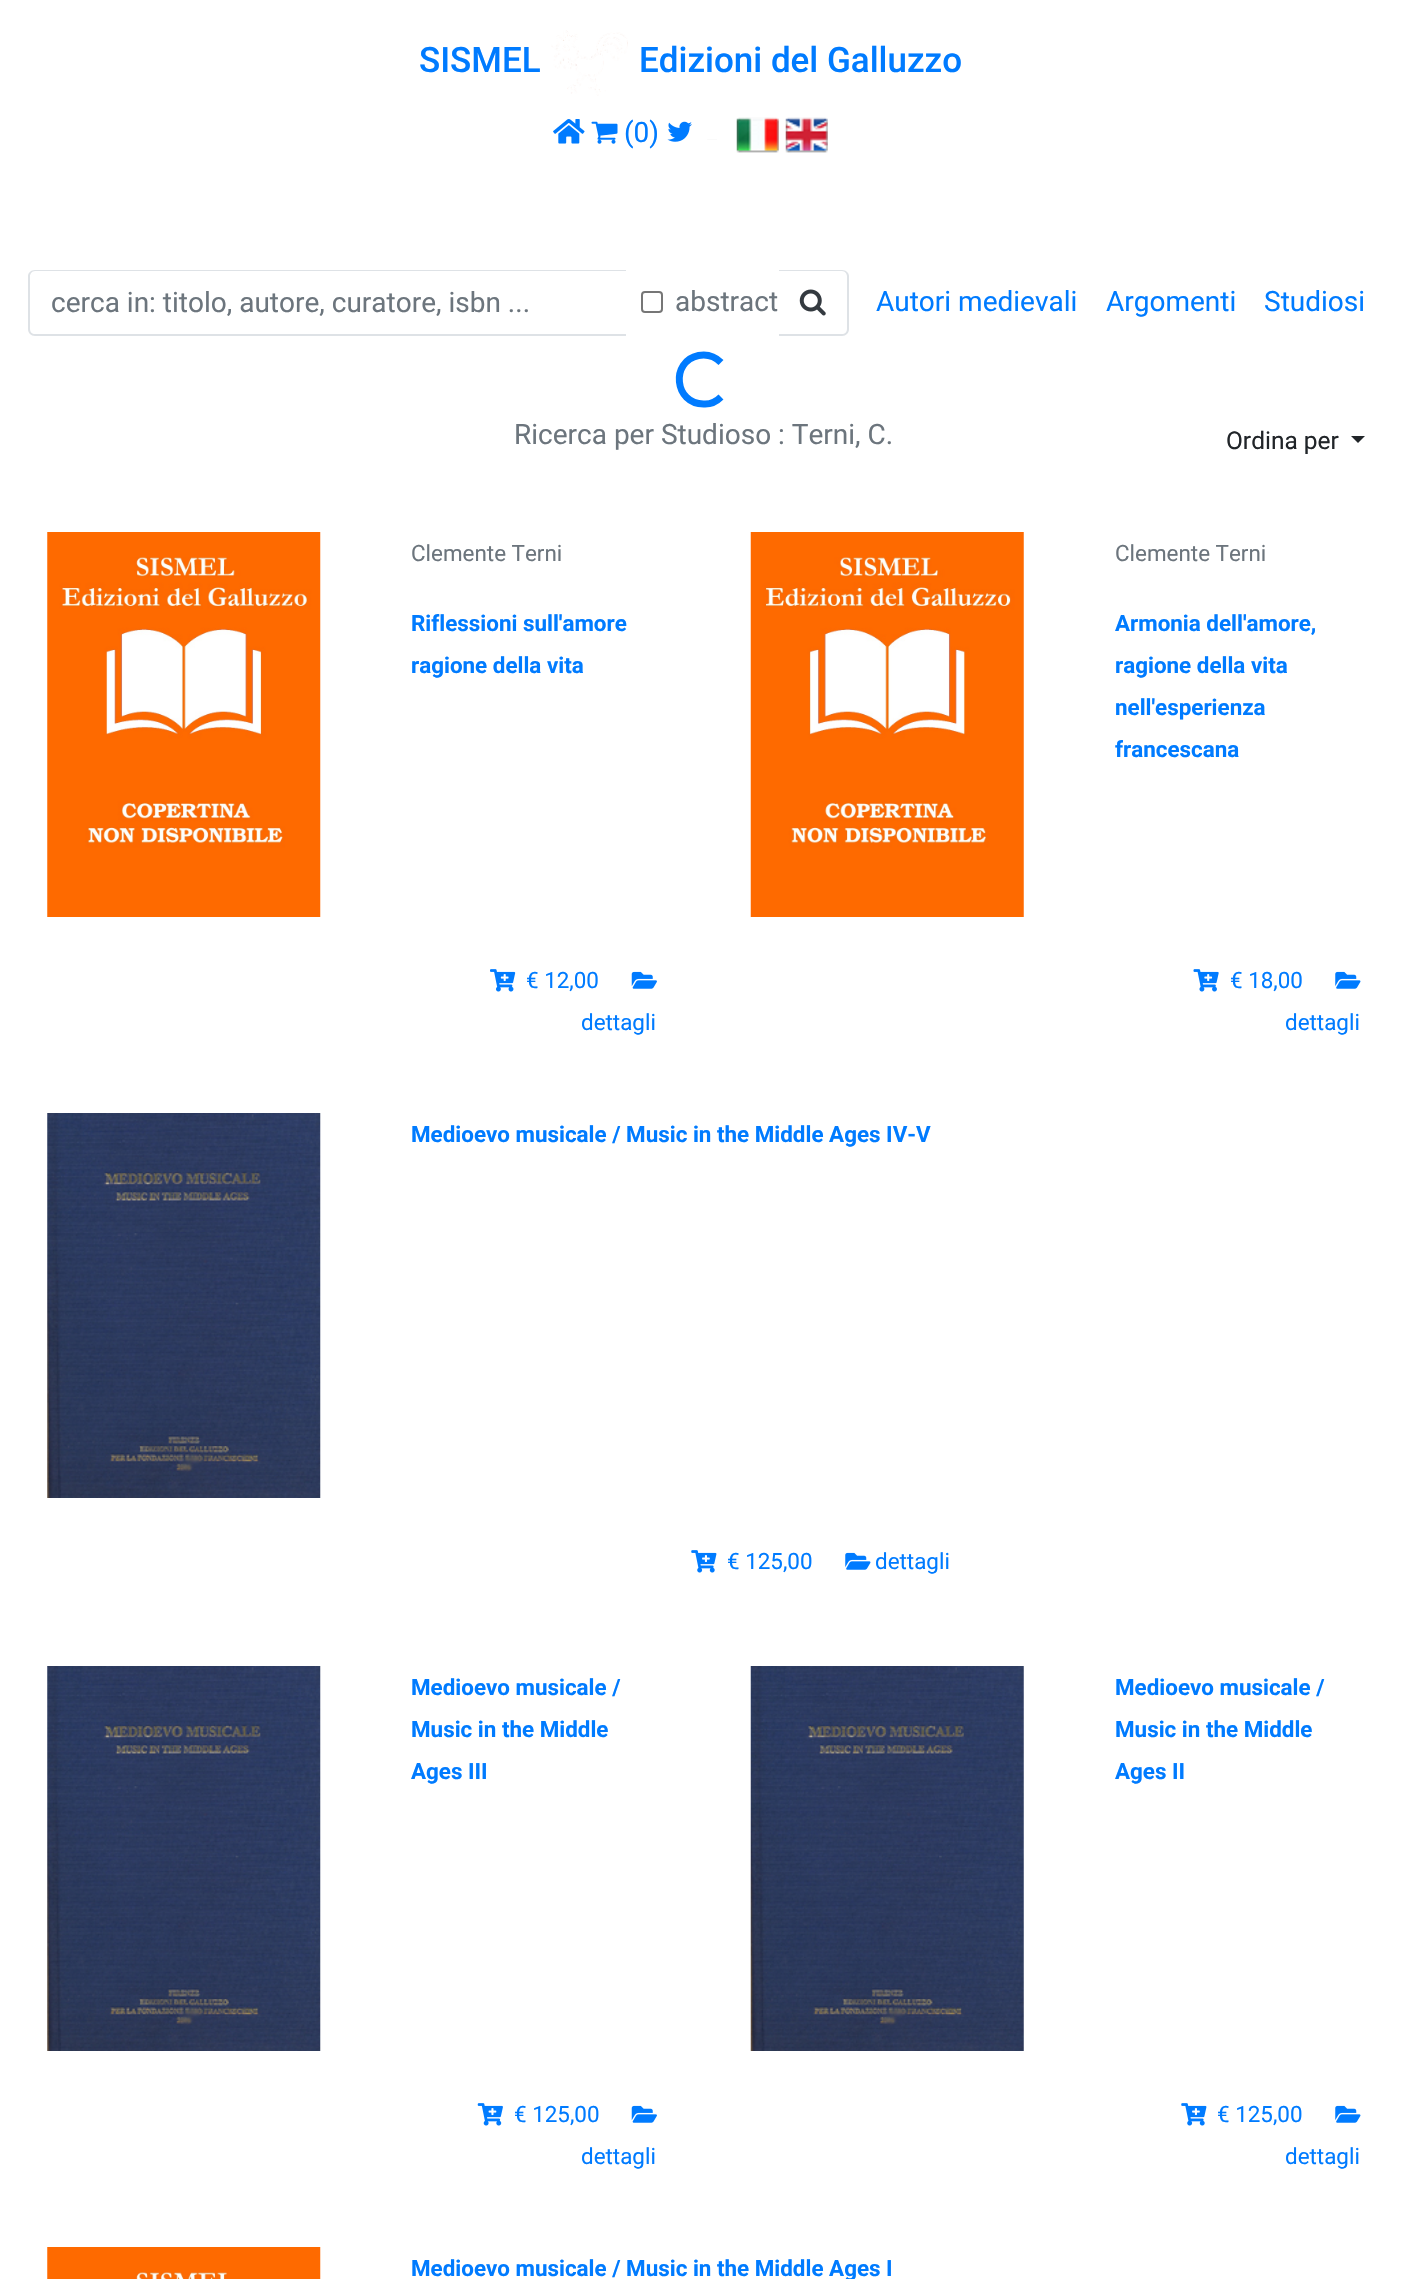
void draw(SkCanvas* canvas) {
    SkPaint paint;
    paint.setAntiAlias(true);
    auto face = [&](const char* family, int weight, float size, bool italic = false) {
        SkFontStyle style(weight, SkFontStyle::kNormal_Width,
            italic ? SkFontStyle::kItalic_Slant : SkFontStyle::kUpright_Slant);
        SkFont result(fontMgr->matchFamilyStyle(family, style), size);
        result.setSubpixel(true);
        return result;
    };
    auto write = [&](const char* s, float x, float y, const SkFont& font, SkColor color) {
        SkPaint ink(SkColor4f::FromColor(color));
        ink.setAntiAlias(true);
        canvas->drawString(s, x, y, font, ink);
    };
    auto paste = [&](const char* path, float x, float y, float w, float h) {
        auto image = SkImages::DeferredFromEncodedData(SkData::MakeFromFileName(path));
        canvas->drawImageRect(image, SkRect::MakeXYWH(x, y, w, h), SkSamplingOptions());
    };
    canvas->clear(SK_ColorWHITE);
    auto kFont1 = face("Roboto", 500, 35);
    write("SISMEL", 419, 72, kFont1, SkColorSetRGB(0, 123, 255));
    paste("pic1.png", 551, 30, 77, 66);
    write("Edizioni del Galluzzo", 639, 72, kFont1, SkColorSetRGB(0, 123, 255));
    paste("pic2.png", 553, 119, 32, 25);
    paste("pic3.png", 591, 121, 27, 23);
    auto kFont2 = face("Roboto", 400, 28);
    write("(0)", 624, 142, kFont2, SkColorSetRGB(0, 123, 255));
    paste("pic4.png", 667, 121, 25, 21);
    paste("pic5.png", 707, 139, 10, 1);
    paste("pic6.png", 736, 117, 43, 36);
    paste("pic7.png", 785, 117, 43, 36);
    paint.setColor(SkColorSetRGB(222, 226, 230));
    canvas->drawPath(SkPathBuilder(SkPathFillType::kEvenOdd).moveTo(35, 270).lineTo(626, 270).lineTo(626, 336).lineTo(35, 336).cubicTo(31, 336, 28, 333, 28, 329).lineTo(28, 276).cubicTo(28, 273, 31, 270, 35, 270).close().moveTo(35, 271).lineTo(626, 271).lineTo(626, 334).lineTo(35, 334).cubicTo(32, 334, 30, 332, 30, 329).lineTo(30, 276).cubicTo(30, 274, 32, 271, 35, 271).close().detach(), paint);
    write("cerca in: titolo, autore, curatore, isbn ...", 51, 312, kFont2, SkColorSetRGB(108, 117, 125));
    paint.setStyle(SkPaint::kStroke_Style);
    paint.setStrokeWidth(2);
    paint.setColor(SkColorSetRGB(118, 118, 118));
    canvas->drawRoundRect(SkRect::MakeXYWH(642, 292, 20, 20), 3, 3, paint);
    write("abstract", 675, 311, kFont2, SkColorSetRGB(108, 117, 125));
    paint.setStyle(SkPaint::kFill_Style);
    paint.setColor(SkColorSetRGB(222, 226, 230));
    canvas->drawPath(SkPathBuilder(SkPathFillType::kEvenOdd).moveTo(779, 270).lineTo(842, 270).cubicTo(846, 270, 849, 273, 849, 276).lineTo(849, 329).cubicTo(849, 333, 846, 336, 842, 336).lineTo(779, 336).close().moveTo(779, 271).lineTo(842, 271).cubicTo(845, 271, 847, 274, 847, 276).lineTo(847, 329).cubicTo(847, 332, 845, 334, 842, 334).lineTo(779, 334).close().detach(), paint);
    paste("pic8.png", 799, 289, 27, 27);
    write("Autori medievali", 876, 311, kFont2, SkColorSetRGB(0, 123, 255));
    write("Argomenti", 1106, 311, kFont2, SkColorSetRGB(0, 123, 255));
    write("Studiosi", 1264, 311, kFont2, SkColorSetRGB(0, 123, 255));
    paint.setStyle(SkPaint::kStroke_Style);
    paint.setStrokeWidth(7);
    paint.setColor(SkColorSetRGB(0, 123, 255));
    canvas->drawPath(SkPathBuilder().moveTo(721, 397).cubicTo(716.5f, 401.5f, 710, 404.5f, 703.5f, 404).cubicTo(674.5f, 404, 670, 361.5f, 698.5f, 355.5f).cubicTo(706.5f, 354, 715, 356.5f, 721, 362.5f).detach(), paint);
    write("Ricerca per Studioso : Terni, C.", 514, 444, kFont2, SkColorSetRGB(108, 117, 125));
    auto kFont3 = face("Roboto", 400, 24.5f);
    write("Ordina per", 1226, 449, kFont3, SkColorSetRGB(33, 37, 41));
    paint.setStyle(SkPaint::kFill_Style);
    paint.setColor(SkColorSetRGB(33, 37, 41));
    canvas->drawPath(SkPathBuilder().moveTo(1351, 436).lineTo(1365, 436).lineTo(1358, 443).close().detach(), paint);
    paste("pic9.png", 47, 532, 274, 385);
    auto kFont4 = face("Roboto", 400, 22.4f);
    write("Clemente Terni", 411, 561, kFont4, SkColorSetRGB(108, 117, 125));
    auto kFont5 = face("Roboto", 700, 22.4f);
    write("Riflessioni sull'amore", 411, 631, kFont5, SkColorSetRGB(0, 123, 255));
    write("ragione della vita", 411, 673, kFont5, SkColorSetRGB(0, 123, 255));
    paste("pic10.png", 490, 969, 26, 23);
    write("€ 12,00", 526, 988, kFont4, SkColorSetRGB(0, 123, 255));
    paste("pic11.png", 631, 971, 26, 18);
    write("dettagli", 581, 1030, kFont4, SkColorSetRGB(0, 123, 255));
    paste("pic12.png", 750, 532, 274, 385);
    write("Clemente Terni", 1115, 561, kFont4, SkColorSetRGB(108, 117, 125));
    write("Armonia dell'amore,", 1115, 631, kFont5, SkColorSetRGB(0, 123, 255));
    write("ragione della vita", 1115, 673, kFont5, SkColorSetRGB(0, 123, 255));
    write("nell'esperienza", 1115, 715, kFont5, SkColorSetRGB(0, 123, 255));
    write("francescana", 1115, 757, kFont5, SkColorSetRGB(0, 123, 255));
    paste("pic13.png", 1193, 969, 26, 23);
    write("€ 18,00", 1230, 988, kFont4, SkColorSetRGB(0, 123, 255));
    paste("pic14.png", 1335, 971, 26, 18);
    write("dettagli", 1285, 1030, kFont4, SkColorSetRGB(0, 123, 255));
    paste("pic15.png", 47, 1113, 274, 385);
    write("Medioevo musicale / Music in the Middle Ages IV-V", 411, 1142, kFont5, SkColorSetRGB(0, 123, 255));
    paste("pic16.png", 691, 1550, 26, 23);
    write("€ 125,00", 727, 1569, kFont4, SkColorSetRGB(0, 123, 255));
    paste("pic14.png", 845, 1552, 26, 18);
    write("dettagli", 875, 1569, kFont4, SkColorSetRGB(0, 123, 255));
    paste("pic15.png", 47, 1666, 274, 385);
    write("Medioevo musicale /", 411, 1695, kFont5, SkColorSetRGB(0, 123, 255));
    write("Music in the Middle", 411, 1737, kFont5, SkColorSetRGB(0, 123, 255));
    write("Ages III", 411, 1779, kFont5, SkColorSetRGB(0, 123, 255));
    paste("pic17.png", 477, 2103, 26, 23);
    write("€ 125,00", 514, 2122, kFont4, SkColorSetRGB(0, 123, 255));
    paste("pic11.png", 631, 2105, 26, 18);
    write("dettagli", 581, 2164, kFont4, SkColorSetRGB(0, 123, 255));
    paste("pic18.png", 750, 1666, 274, 385);
    write("Medioevo musicale /", 1115, 1695, kFont5, SkColorSetRGB(0, 123, 255));
    write("Music in the Middle", 1115, 1737, kFont5, SkColorSetRGB(0, 123, 255));
    write("Ages II", 1115, 1779, kFont5, SkColorSetRGB(0, 123, 255));
    paste("pic16.png", 1181, 2103, 26, 23);
    write("€ 125,00", 1217, 2122, kFont4, SkColorSetRGB(0, 123, 255));
    paste("pic14.png", 1335, 2105, 26, 18);
    write("dettagli", 1285, 2164, kFont4, SkColorSetRGB(0, 123, 255));
    paste("pic19.png", 47, 2247, 274, 32);
    write("Medioevo musicale / Music in the Middle Ages I", 411, 2276, kFont5, SkColorSetRGB(0, 123, 255));
}
